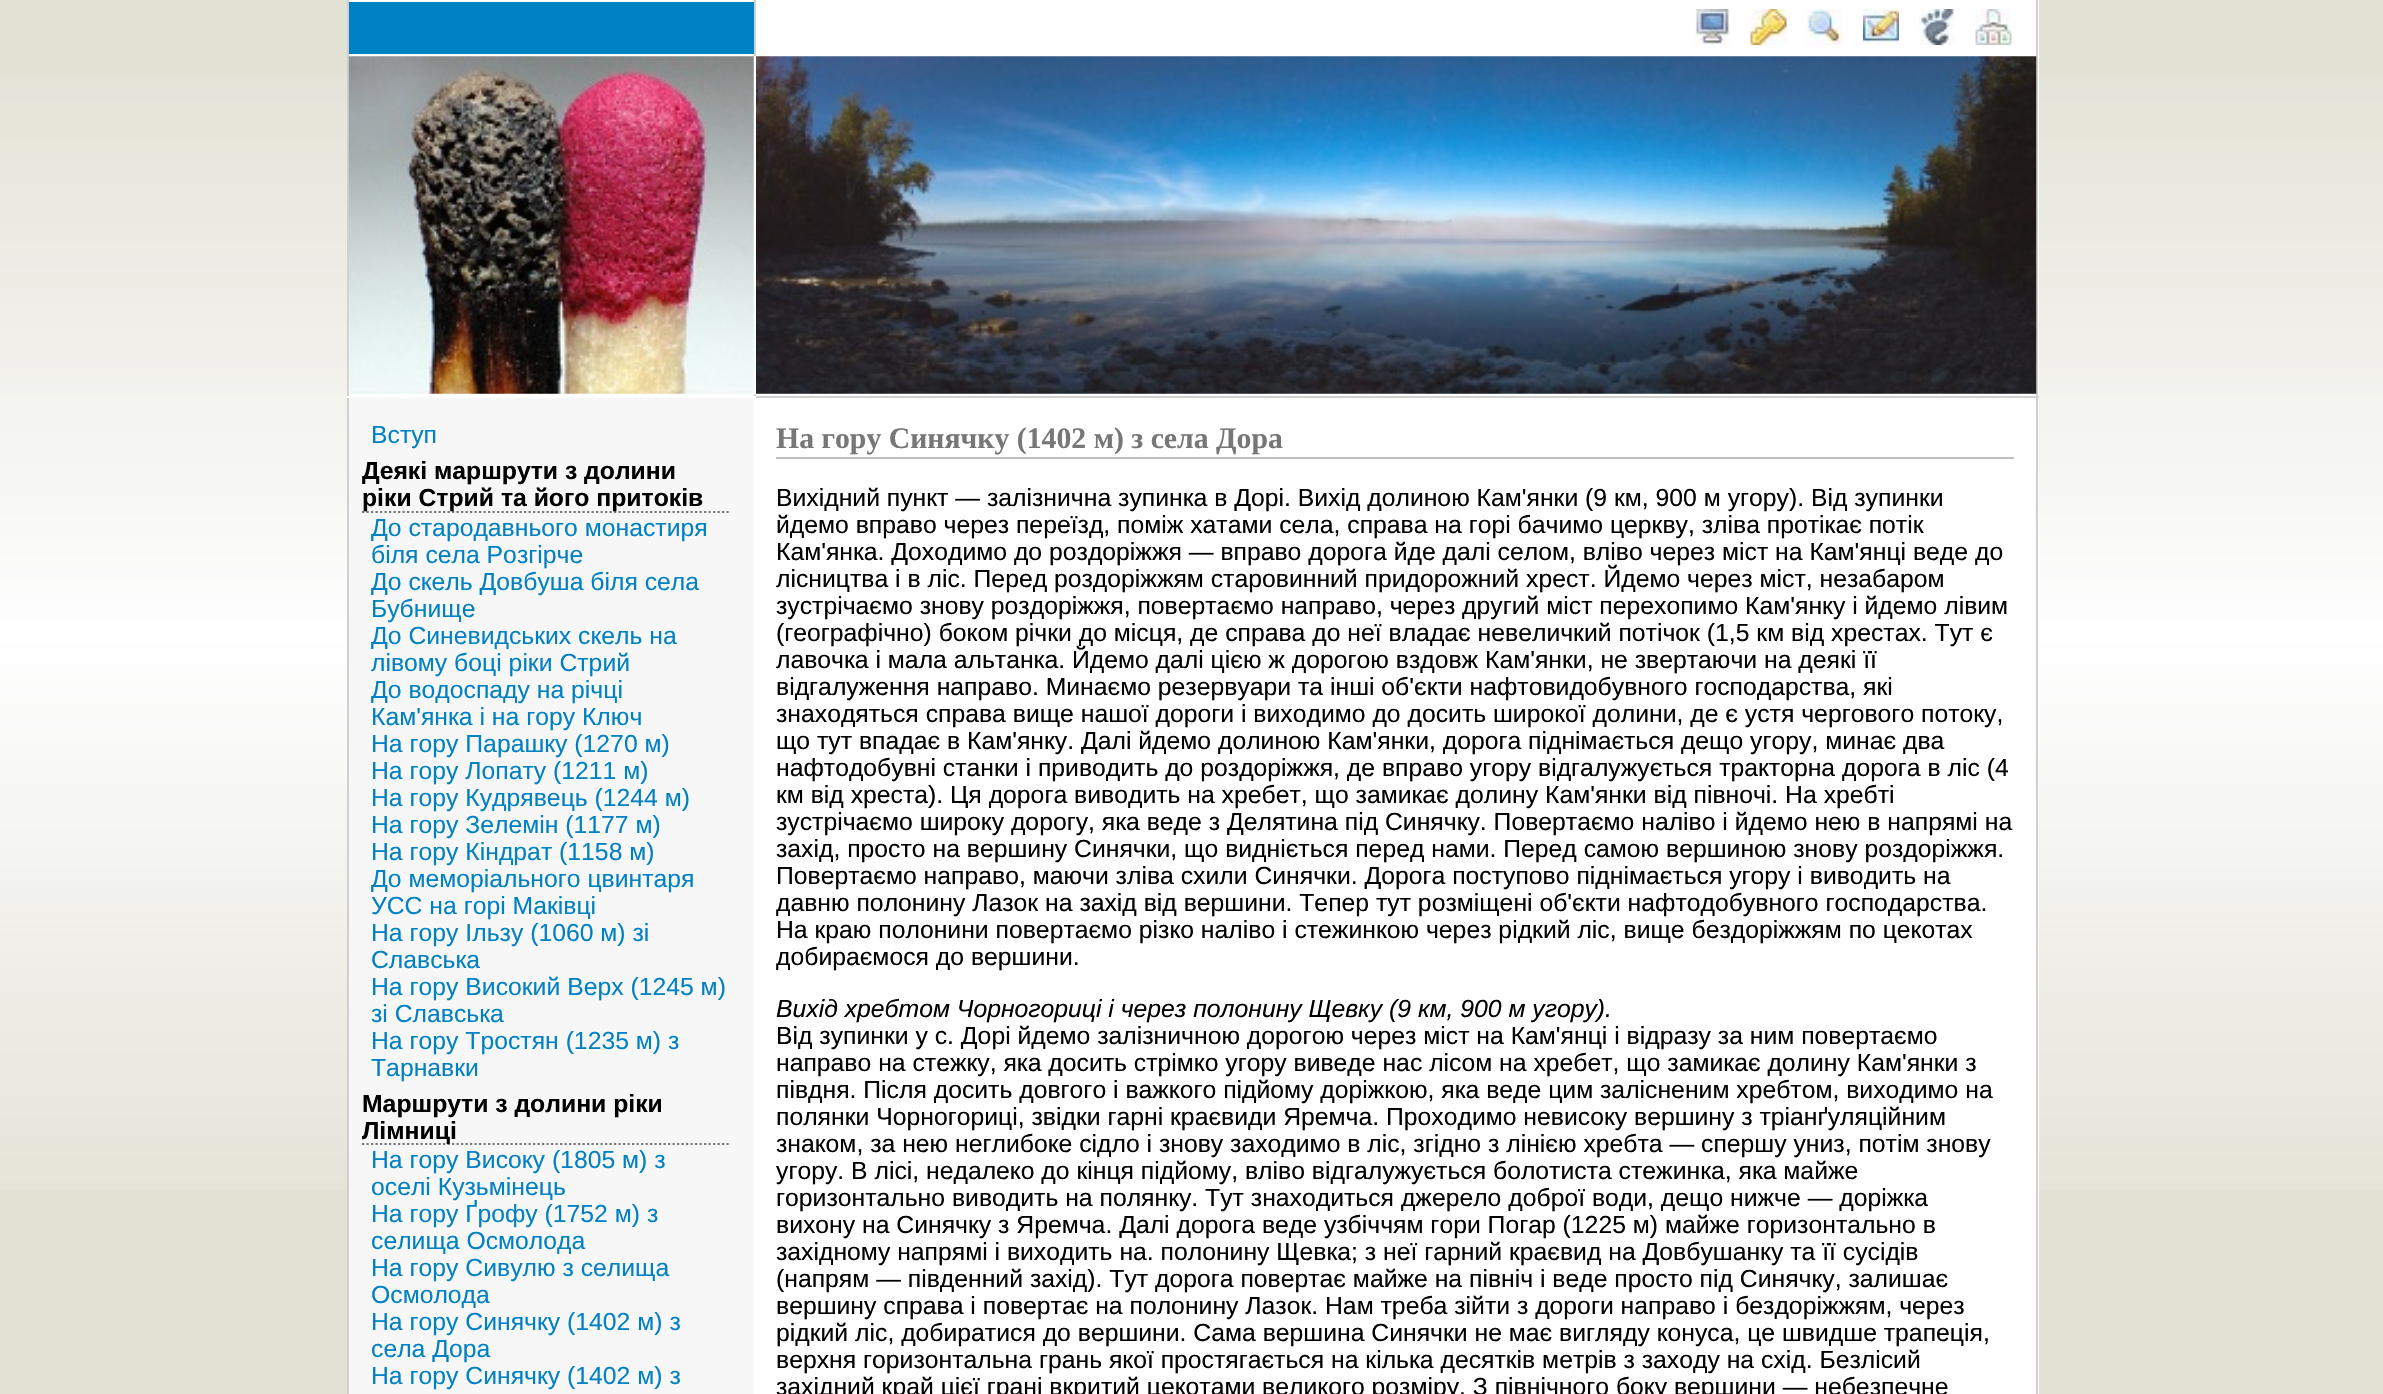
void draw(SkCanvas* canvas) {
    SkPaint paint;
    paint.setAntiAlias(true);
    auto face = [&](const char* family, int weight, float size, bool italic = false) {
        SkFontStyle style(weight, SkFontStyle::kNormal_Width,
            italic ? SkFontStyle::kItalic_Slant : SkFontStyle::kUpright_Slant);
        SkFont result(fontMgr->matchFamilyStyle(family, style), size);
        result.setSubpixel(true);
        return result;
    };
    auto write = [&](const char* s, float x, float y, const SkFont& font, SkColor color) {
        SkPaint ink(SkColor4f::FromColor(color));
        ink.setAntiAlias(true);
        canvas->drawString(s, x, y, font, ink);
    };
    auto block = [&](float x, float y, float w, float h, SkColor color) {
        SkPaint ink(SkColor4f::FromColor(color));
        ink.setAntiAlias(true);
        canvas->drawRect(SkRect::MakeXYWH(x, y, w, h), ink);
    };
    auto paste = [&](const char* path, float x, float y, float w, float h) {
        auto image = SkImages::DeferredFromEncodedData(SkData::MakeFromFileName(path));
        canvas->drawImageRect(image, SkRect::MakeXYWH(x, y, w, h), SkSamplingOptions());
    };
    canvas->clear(SkColorSetRGB(225, 225, 212));
    paste("pic1.png", 0, 73, 2383, 1117);
    block(347, 0, 1692, 1394, SK_ColorWHITE);
    block(347, 0, 2, 396, SkColorSetRGB(208, 208, 208));
    block(754, 0, 2, 56, SkColorSetRGB(208, 208, 208));
    block(2036, 0, 2, 396, SkColorSetRGB(208, 208, 208));
    block(349, 2, 405, 52, SkColorSetRGB(0, 129, 196));
    paste("pic2.png", 1694, 9, 37, 36);
    paste("pic3.png", 1750, 9, 37, 36);
    paste("pic4.png", 1806, 9, 37, 36);
    paste("pic5.png", 1863, 9, 36, 36);
    paste("pic6.png", 1919, 9, 36, 36);
    paste("pic7.png", 1975, 9, 37, 36);
    paste("pic8.png", 348, 56, 406, 338);
    paste("pic9.png", 756, 56, 1281, 338);
    block(754, 394, 2, 2, SkColorSetRGB(208, 208, 208));
    block(756, 396, 1283, 2, SkColorSetRGB(208, 208, 208));
    block(347, 398, 2, 996, SkColorSetRGB(208, 208, 208));
    block(349, 398, 405, 996, SkColorSetRGB(247, 247, 247));
    auto kFont1 = face("Liberation Sans", 400, 24.75f);
    write("Вступ", 371, 443, kFont1, SkColorSetRGB(0, 129, 196));
    paint.setStyle(SkPaint::kStroke_Style);
    paint.setStrokeWidth(2.2f);
    paint.setColor(SkColorSetRGB(119, 119, 119));
    paint.setPathEffect(SkDashPathEffect::Make({{2.25f, 2.25f}}, 0));
    canvas->drawPath(SkPathBuilder().moveTo(362, 512).lineTo(731, 512).detach(), paint);
    paint.setPathEffect(nullptr);
    auto kFont2 = face("Liberation Sans", 700, 24.75f);
    write("Деякі маршрути з долини", 362, 479, kFont2, SK_ColorBLACK);
    write("ріки Стрий та його притоків", 362, 506, kFont2, SK_ColorBLACK);
    write("До стародавнього монастиря", 371, 536, kFont1, SkColorSetRGB(0, 129, 196));
    write("біля села Розгірче", 371, 563, kFont1, SkColorSetRGB(0, 129, 196));
    write("До скель Довбуша біля села", 371, 590, kFont1, SkColorSetRGB(0, 129, 196));
    write("Бубнище", 371, 617, kFont1, SkColorSetRGB(0, 129, 196));
    write("До Синевидських скель на", 371, 644, kFont1, SkColorSetRGB(0, 129, 196));
    write("лівому боці ріки Стрий", 371, 671, kFont1, SkColorSetRGB(0, 129, 196));
    write("До водоспаду на річці", 371, 698, kFont1, SkColorSetRGB(0, 129, 196));
    write("Кам'янка і на гору Ключ", 371, 725, kFont1, SkColorSetRGB(0, 129, 196));
    write("На гору Парашку (1270 м)", 371, 752, kFont1, SkColorSetRGB(0, 129, 196));
    write("На гору Лопату (1211 м)", 371, 779, kFont1, SkColorSetRGB(0, 129, 196));
    write("На гору Кудрявець (1244 м)", 371, 806, kFont1, SkColorSetRGB(0, 129, 196));
    write("На гору Зелемін (1177 м)", 371, 833, kFont1, SkColorSetRGB(0, 129, 196));
    write("На гору Кіндрат (1158 м)", 371, 860, kFont1, SkColorSetRGB(0, 129, 196));
    write("До меморіального цвинтаря", 371, 887, kFont1, SkColorSetRGB(0, 129, 196));
    write("УСС на горі Маківці", 371, 914, kFont1, SkColorSetRGB(0, 129, 196));
    write("На гору Ільзу (1060 м) зі", 371, 941, kFont1, SkColorSetRGB(0, 129, 196));
    write("Славська", 371, 968, kFont1, SkColorSetRGB(0, 129, 196));
    write("На гору Високий Верх (1245 м)", 371, 995, kFont1, SkColorSetRGB(0, 129, 196));
    write("зі Славська", 371, 1022, kFont1, SkColorSetRGB(0, 129, 196));
    write("На гору Тростян (1235 м) з", 371, 1049, kFont1, SkColorSetRGB(0, 129, 196));
    write("Тарнавки", 371, 1076, kFont1, SkColorSetRGB(0, 129, 196));
    paint.setPathEffect(SkDashPathEffect::Make({{2.25f, 2.25f}}, 0));
    canvas->drawPath(SkPathBuilder().moveTo(362, 1144).lineTo(731, 1144).detach(), paint);
    paint.setPathEffect(nullptr);
    write("Маршрути з долини ріки", 362, 1112, kFont2, SK_ColorBLACK);
    write("Лімниці", 362, 1139, kFont2, SK_ColorBLACK);
    write("На гору Високу (1805 м) з", 371, 1168, kFont1, SkColorSetRGB(0, 129, 196));
    write("оселі Кузьмінець", 371, 1195, kFont1, SkColorSetRGB(0, 129, 196));
    write("На гору Ґрофу (1752 м) з", 371, 1222, kFont1, SkColorSetRGB(0, 129, 196));
    write("селища Осмолода", 371, 1249, kFont1, SkColorSetRGB(0, 129, 196));
    write("На гору Сивулю з селища", 371, 1276, kFont1, SkColorSetRGB(0, 129, 196));
    write("Осмолода", 371, 1303, kFont1, SkColorSetRGB(0, 129, 196));
    write("На гору Синячку (1402 м) з", 371, 1330, kFont1, SkColorSetRGB(0, 129, 196));
    write("села Дора", 371, 1357, kFont1, SkColorSetRGB(0, 129, 196));
    write("На гору Синячку (1402 м) з", 371, 1384, kFont1, SkColorSetRGB(0, 129, 196));
    block(776, 457, 1238, 2, SkColorSetRGB(192, 192, 192));
    auto kFont3 = face("Liberation Serif", 700, 29.75f);
    write("На гору Синячку (1402 м) з села Дора", 776, 448, kFont3, SkColorSetRGB(119, 119, 119));
    write("Вихідний пункт — залізнична зупинка в Дорі. Вихід долиною Кам'янки (9 км, 900 м угору). Від зупинки", 776, 506, kFont1, SK_ColorBLACK);
    write("йдемо вправо через переїзд, поміж хатами села, справа на горі бачимо церкву, зліва протікає потік", 776, 533, kFont1, SK_ColorBLACK);
    write("Кам'янка. Доходимо до роздоріжжя — вправо дорога йде далі селом, вліво через міст на Кам'янці веде до", 776, 560, kFont1, SK_ColorBLACK);
    write("лісництва і в ліс. Перед роздоріжжям старовинний придорожний хрест. Йдемо через міст, незабаром", 776, 587, kFont1, SK_ColorBLACK);
    write("зустрічаємо знову роздоріжжя, повертаємо направо, через другий міст перехопимо Кам'янку і йдемо лівим", 776, 614, kFont1, SK_ColorBLACK);
    write("(географічно) боком річки до місця, де справа до неї владає невеличкий потічок (1,5 км від хрестах. Тут є", 776, 641, kFont1, SK_ColorBLACK);
    write("лавочка і мала альтанка. Йдемо далі цією ж дорогою вздовж Кам'янки, не звертаючи на деякі її", 776, 668, kFont1, SK_ColorBLACK);
    write("відгалуження направо. Минаємо резервуари та інші об'єкти нафтовидобувного господарства, які", 776, 695, kFont1, SK_ColorBLACK);
    write("знаходяться справа вище нашої дороги і виходимо до досить широкої долини, де є устя чергового потоку,", 776, 722, kFont1, SK_ColorBLACK);
    write("що тут впадає в Кам'янку. Далі йдемо долиною Кам'янки, дорога піднімається дещо угору, минає два", 776, 749, kFont1, SK_ColorBLACK);
    write("нафтодобувні станки і приводить до роздоріжжя, де вправо угору відгалужується тракторна дорога в ліс (4", 776, 776, kFont1, SK_ColorBLACK);
    write("км від хреста). Ця дорога виводить на хребет, що замикає долину Кам'янки від півночі. На хребті", 776, 803, kFont1, SK_ColorBLACK);
    write("зустрічаємо широку дорогу, яка веде з Делятина під Синячку. Повертаємо наліво і йдемо нею в напрямі на", 776, 830, kFont1, SK_ColorBLACK);
    write("захід, просто на вершину Синячки, що видніється перед нами. Перед самою вершиною знову роздоріжжя.", 776, 857, kFont1, SK_ColorBLACK);
    write("Повертаємо направо, маючи зліва схили Синячки. Дорога поступово піднімається угору і виводить на", 776, 884, kFont1, SK_ColorBLACK);
    write("давню полонину Лазок на захід від вершини. Тепер тут розміщені об'єкти нафтодобувного господарства.", 776, 911, kFont1, SK_ColorBLACK);
    write("На краю полонини повертаємо різко наліво і стежинкою через рідкий ліс, вище бездоріжжям по цекотах", 776, 938, kFont1, SK_ColorBLACK);
    write("добираємося до вершини.", 776, 965, kFont1, SK_ColorBLACK);
    auto kFont4 = face("Liberation Sans", 400, 24.75f, true);
    write("Вихід хребтом Чорногориці і через полонину Щевку (9 км, 900 м угору).", 776, 1017, kFont4, SK_ColorBLACK);
    write("Від зупинки у с. Дорі йдемо залізничною дорогою через міст на Кам'янці і відразу за ним повертаємо", 776, 1044, kFont1, SK_ColorBLACK);
    write("направо на стежку, яка досить стрімко угору виведе нас лісом на хребет, що замикає долину Кам'янки з", 776, 1071, kFont1, SK_ColorBLACK);
    write("півдня. Після досить довгого і важкого підйому доріжкою, яка веде цим залісненим хребтом, виходимо на", 776, 1098, kFont1, SK_ColorBLACK);
    write("полянки Чорногориці, звідки гарні краєвиди Яремча. Проходимо невисоку вершину з тріанґуляційним", 776, 1125, kFont1, SK_ColorBLACK);
    write("знаком, за нею неглибоке сідло і знову заходимо в ліс, згідно з лінією хребта — спершу униз, потім знову", 776, 1152, kFont1, SK_ColorBLACK);
    write("угору. В лісі, недалеко до кінця підйому, вліво відгалужується болотиста стежинка, яка майже", 776, 1179, kFont1, SK_ColorBLACK);
    write("горизонтально виводить на полянку. Тут знаходиться джерело доброї води, дещо нижче — доріжка", 776, 1206, kFont1, SK_ColorBLACK);
    write("вихону на Синячку з Яремча. Далі дорога веде узбіччям гори Погар (1225 м) майже горизонтально в", 776, 1233, kFont1, SK_ColorBLACK);
    write("західному напрямі і виходить на. полонину Щевка; з неї гарний краєвид на Довбушанку та її сусідів", 776, 1260, kFont1, SK_ColorBLACK);
    write("(напрям — південний захід). Тут дорога повертає майже на північ і веде просто під Синячку, залишає", 776, 1287, kFont1, SK_ColorBLACK);
    write("вершину справа і повертає на полонину Лазок. Нам треба зійти з дороги направо і бездоріжжям, через", 776, 1314, kFont1, SK_ColorBLACK);
    write("рідкий ліс, добиратися до вершини. Сама вершина Синячки не має вигляду конуса, це швидше трапеція,", 776, 1341, kFont1, SK_ColorBLACK);
    write("верхня горизонтальна грань якої простягається на кілька десятків метрів з заходу на схід. Безлісий", 776, 1368, kFont1, SK_ColorBLACK);
    write("західний край цієї грані вкритий цекотами великого розміру. З північного боку вершини — небезпечне", 776, 1395, kFont1, SK_ColorBLACK);
    block(2036, 398, 2, 996, SkColorSetRGB(208, 208, 208));
}
